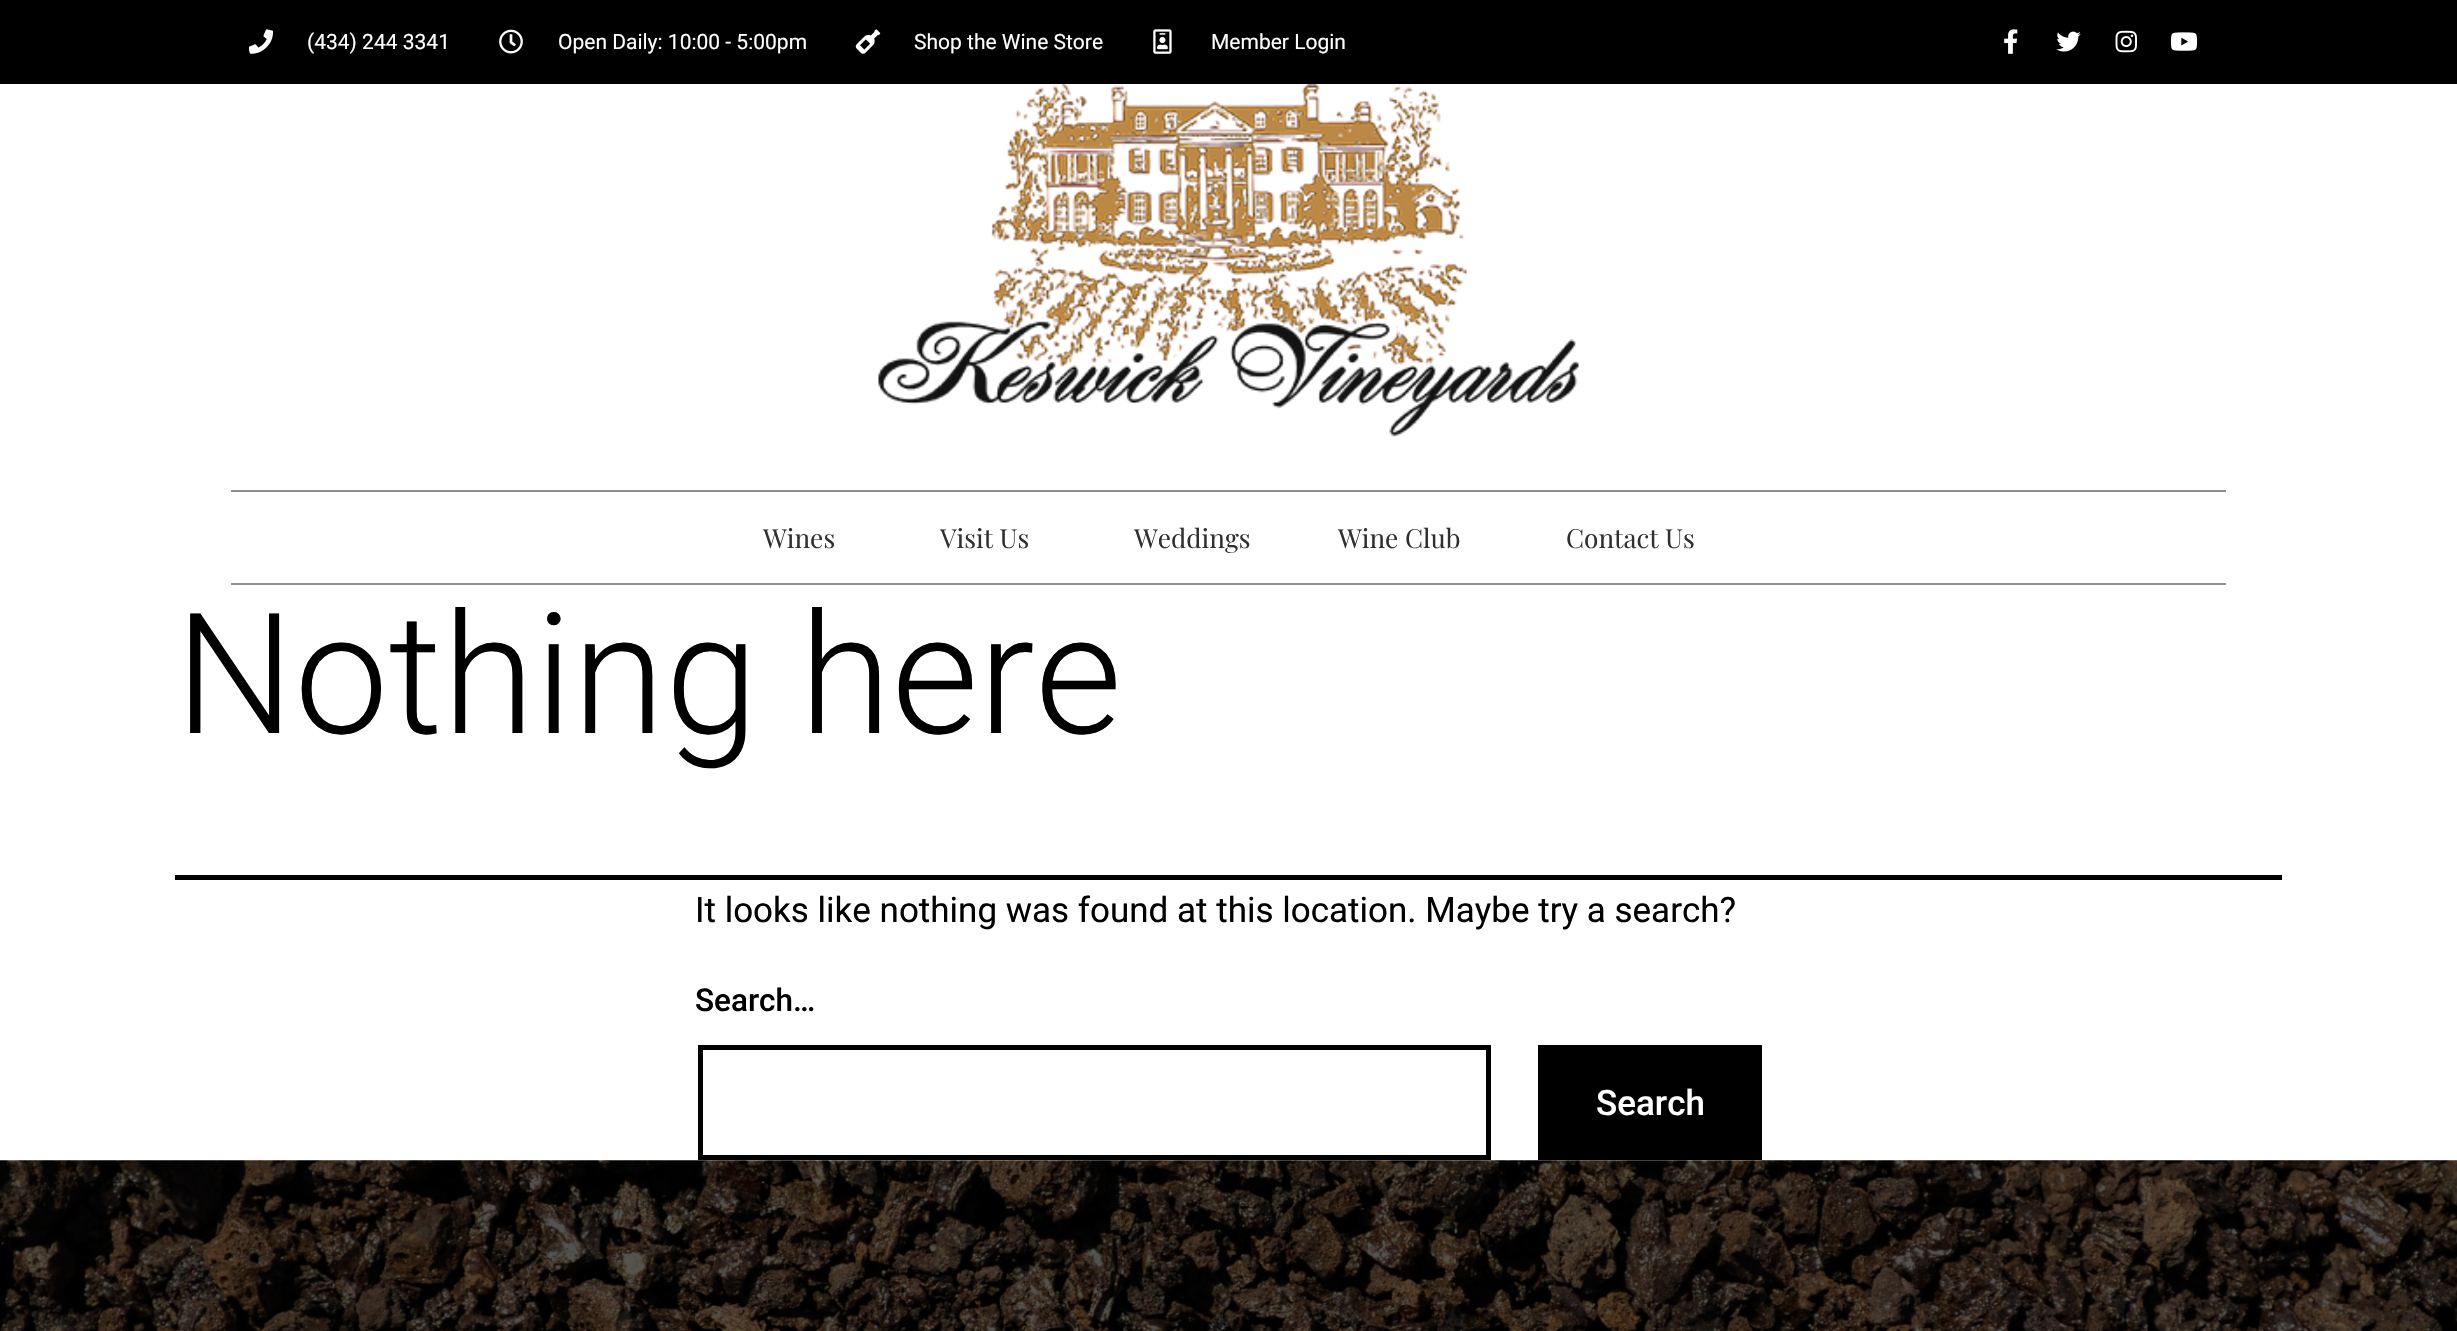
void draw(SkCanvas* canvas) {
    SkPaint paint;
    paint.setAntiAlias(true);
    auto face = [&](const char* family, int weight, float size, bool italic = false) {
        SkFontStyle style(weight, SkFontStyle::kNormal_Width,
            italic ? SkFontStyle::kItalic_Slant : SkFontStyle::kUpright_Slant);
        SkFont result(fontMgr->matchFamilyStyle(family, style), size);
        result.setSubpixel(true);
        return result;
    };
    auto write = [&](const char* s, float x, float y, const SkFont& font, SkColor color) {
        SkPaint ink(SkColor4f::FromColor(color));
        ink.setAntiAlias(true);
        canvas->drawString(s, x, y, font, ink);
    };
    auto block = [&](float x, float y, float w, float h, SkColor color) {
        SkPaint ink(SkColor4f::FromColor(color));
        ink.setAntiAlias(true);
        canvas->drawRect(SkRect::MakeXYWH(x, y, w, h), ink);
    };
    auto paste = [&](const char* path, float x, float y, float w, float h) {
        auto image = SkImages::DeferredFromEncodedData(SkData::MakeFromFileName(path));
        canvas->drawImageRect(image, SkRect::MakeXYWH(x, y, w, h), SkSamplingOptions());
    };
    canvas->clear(SK_ColorWHITE);
    block(0, 0, 2457, 84, SK_ColorBLACK);
    paste("pic1.png", 249, 29, 24, 25);
    auto kFont1 = face("Roboto", 400, 21);
    write("(434) 244 3341", 307, 49, kFont1, SK_ColorWHITE);
    paste("pic2.png", 499, 29, 24, 25);
    write("Open Daily: 10:00 - 5:00pm", 558, 49, kFont1, SK_ColorWHITE);
    paste("pic3.png", 855, 29, 26, 25);
    write("Shop the Wine Store", 914, 49, kFont1, SK_ColorWHITE);
    paste("pic4.png", 1153, 29, 19, 25);
    write("Member Login", 1211, 49, kFont1, SK_ColorWHITE);
    paste("pic5.png", 2004, 29, 14, 25);
    paste("pic6.png", 2056, 31, 25, 21);
    paste("pic7.png", 2115, 30, 22, 23);
    paste("pic8.png", 2170, 32, 28, 19);
    paste("pic9.png", 878, 84, 701, 353);
    block(231, 490, 1995, 2, SkColorSetRGB(142, 142, 142));
    block(231, 583, 1995, 2, SkColorSetRGB(142, 142, 142));
    auto kFont2 = face("Playfair Display", 400, 26.25f);
    write("Wines", 763, 548, kFont2, SkColorSetRGB(48, 48, 48));
    write("Visit Us", 940, 548, kFont2, SkColorSetRGB(48, 48, 48));
    write("Weddings", 1134, 548, kFont2, SkColorSetRGB(48, 48, 48));
    write("Wine Club", 1338, 548, kFont2, SkColorSetRGB(48, 48, 48));
    write("Contact Us", 1566, 548, kFont2, SkColorSetRGB(48, 48, 48));
    block(175, 875, 2107, 5, SK_ColorBLACK);
    auto kFont3 = face("Roboto", 300, 168);
    write("Nothing here", 175, 733, kFont3, SK_ColorBLACK);
    auto kFont4 = face("Roboto", 400, 35);
    write("It looks like nothing was found at this location. Maybe try a search?", 695, 922, kFont4, SK_ColorBLACK);
    auto kFont5 = face("Roboto", 500, 31.5f);
    write("Search…", 695, 1011, kFont5, SK_ColorBLACK);
    paint.setStyle(SkPaint::kStroke_Style);
    paint.setStrokeWidth(5);
    paint.setColor(SK_ColorBLACK);
    canvas->drawRect(SkRect::MakeXYWH(700.5f, 1047.5f, 788, 110), paint);
    block(1538, 1045, 224, 115, SK_ColorBLACK);
    auto kFont6 = face("Roboto", 500, 35);
    write("Search", 1596, 1115, kFont6, SK_ColorWHITE);
    paste("pic10.png", 0, 1160, 2457, 171);
}
